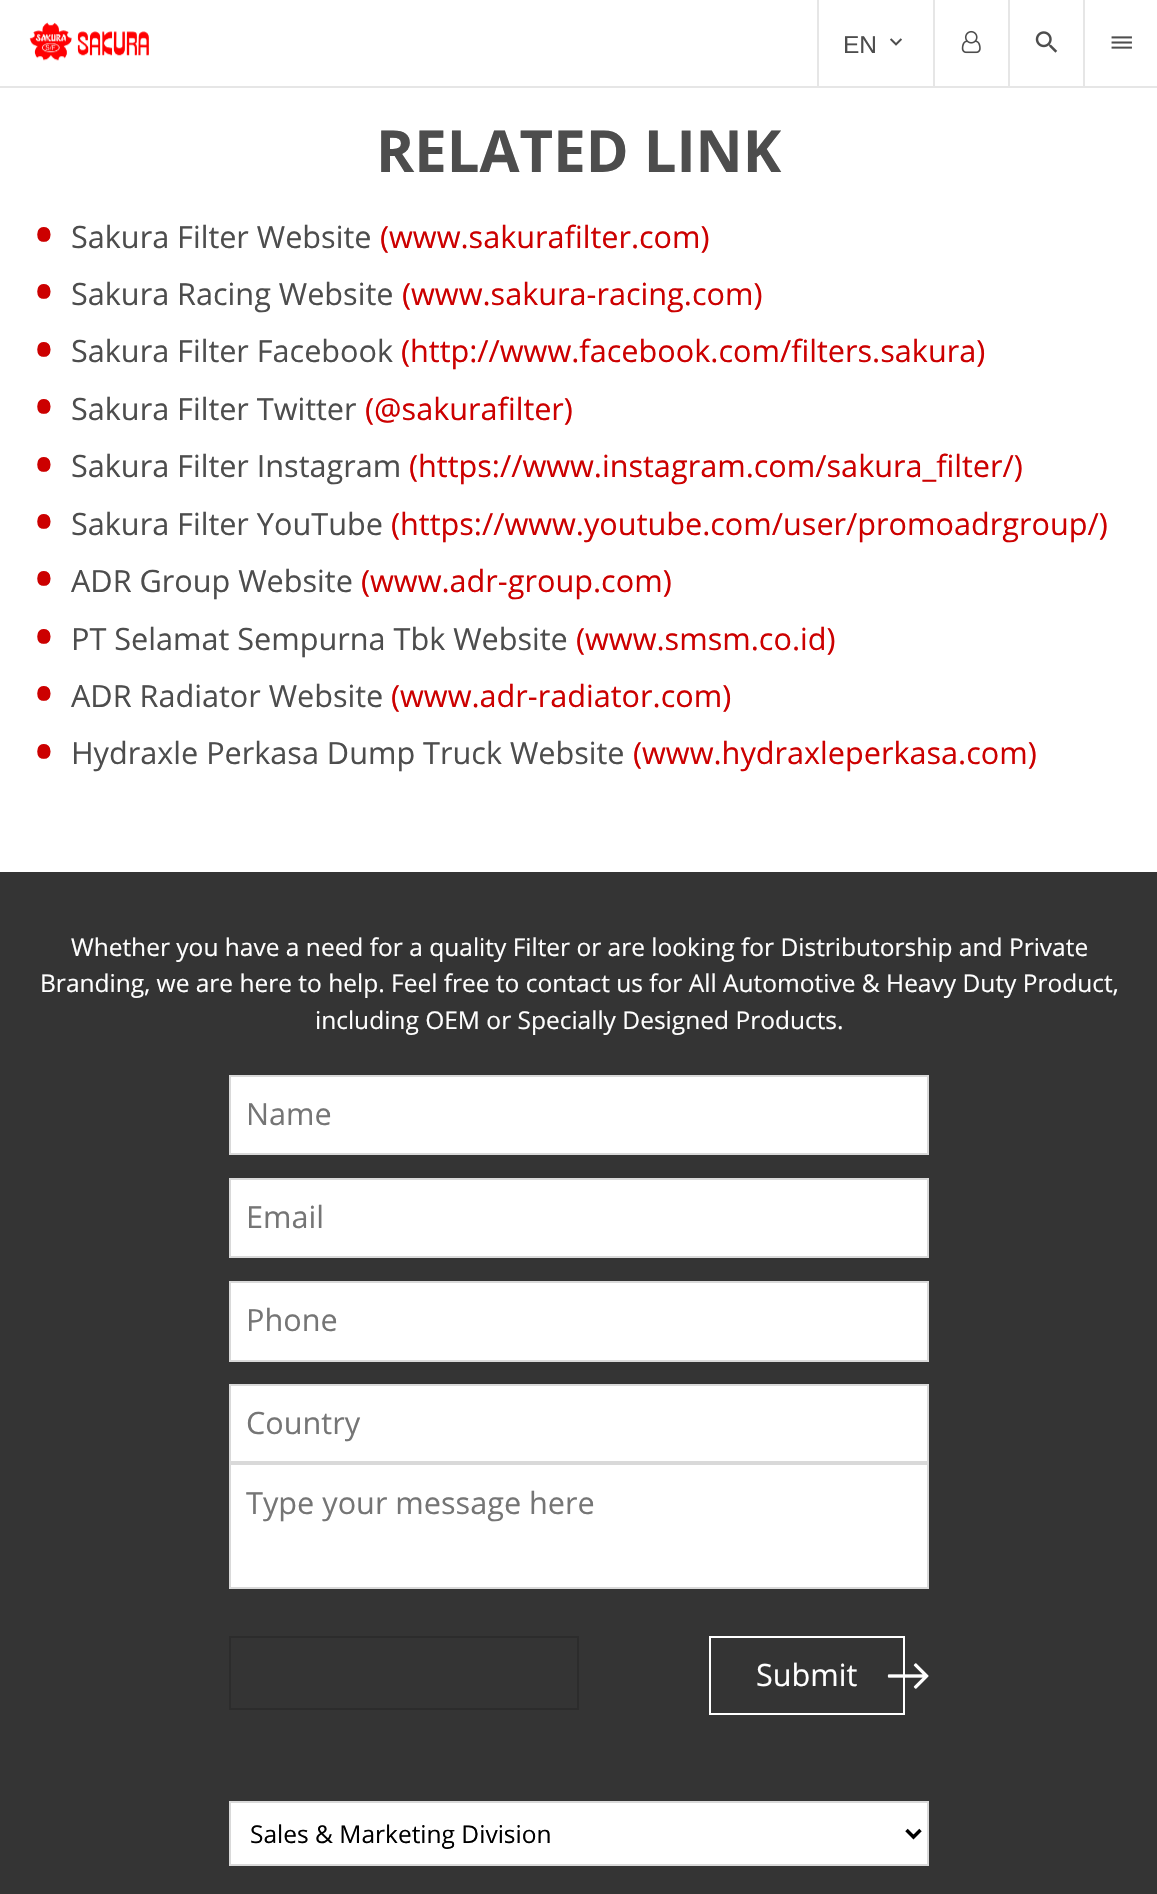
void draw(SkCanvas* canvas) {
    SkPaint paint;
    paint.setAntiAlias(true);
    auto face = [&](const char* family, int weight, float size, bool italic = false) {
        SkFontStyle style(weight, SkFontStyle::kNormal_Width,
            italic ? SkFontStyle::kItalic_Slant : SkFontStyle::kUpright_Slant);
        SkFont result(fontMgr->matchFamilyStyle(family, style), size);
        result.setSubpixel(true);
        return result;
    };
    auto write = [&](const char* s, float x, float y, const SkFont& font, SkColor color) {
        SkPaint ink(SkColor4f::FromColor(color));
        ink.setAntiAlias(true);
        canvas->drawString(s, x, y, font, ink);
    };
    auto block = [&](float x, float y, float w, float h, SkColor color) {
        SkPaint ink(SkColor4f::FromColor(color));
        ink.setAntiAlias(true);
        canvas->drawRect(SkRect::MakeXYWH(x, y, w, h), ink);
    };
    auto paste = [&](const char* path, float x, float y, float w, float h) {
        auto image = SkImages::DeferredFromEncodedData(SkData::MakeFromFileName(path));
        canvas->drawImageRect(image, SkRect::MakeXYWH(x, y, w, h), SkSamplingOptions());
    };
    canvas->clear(SK_ColorWHITE);
    block(0, 86, 1157, 2, SkColorSetRGB(230, 230, 230));
    paste("pic1.png", 29, 22, 120, 39);
    block(817, 0, 2, 88, SkColorSetRGB(230, 230, 230));
    auto kFont1 = face("Liberation Sans", 400, 24.5f);
    write("EN", 843, 53, kFont1, SkColorSetRGB(77, 77, 77));
    paste("pic2.png", 890, 38, 12, 8);
    block(933, 0, 2, 88, SkColorSetRGB(230, 230, 230));
    paste("pic3.png", 961, 30, 20, 24);
    block(1008, 0, 2, 88, SkColorSetRGB(230, 230, 230));
    paste("pic4.png", 1035, 31, 23, 22);
    block(1083, 0, 2, 88, SkColorSetRGB(230, 230, 230));
    paste("pic5.png", 1111, 36, 21, 13);
    auto kFont2 = face("Open Sans", 700, 58);
    write("RELATED LINK", 376, 172, kFont2, SkColorSetRGB(77, 77, 77));
    auto kFont3 = face("Open Sans", 400, 112);
    write("·", 29, 274, kFont3, SkColorSetRGB(204, 0, 0));
    auto kFont4 = face("Open Sans", 400, 30.6f);
    write("Sakura Filter Website", 71, 248, kFont4, SkColorSetRGB(77, 77, 77));
    write("(www.sakurafilter.com)", 380, 248, kFont4, SkColorSetRGB(204, 0, 0));
    write("·", 29, 331, kFont3, SkColorSetRGB(204, 0, 0));
    write("Sakura Racing Website", 71, 305, kFont4, SkColorSetRGB(77, 77, 77));
    write("(www.sakura-racing.com)", 402, 305, kFont4, SkColorSetRGB(204, 0, 0));
    write("·", 29, 389, kFont3, SkColorSetRGB(204, 0, 0));
    write("Sakura Filter Facebook", 71, 362, kFont4, SkColorSetRGB(77, 77, 77));
    write("(http://www.facebook.com/filters.sakura)", 401, 362, kFont4, SkColorSetRGB(204, 0, 0));
    write("·", 29, 446, kFont3, SkColorSetRGB(204, 0, 0));
    write("Sakura Filter Twitter", 71, 420, kFont4, SkColorSetRGB(77, 77, 77));
    write("(@sakurafilter)", 365, 420, kFont4, SkColorSetRGB(204, 0, 0));
    write("·", 29, 504, kFont3, SkColorSetRGB(204, 0, 0));
    write("Sakura Filter Instagram", 71, 477, kFont4, SkColorSetRGB(77, 77, 77));
    write("(https://www.instagram.com/sakura_filter/)", 409, 477, kFont4, SkColorSetRGB(204, 0, 0));
    write("·", 29, 561, kFont3, SkColorSetRGB(204, 0, 0));
    write("Sakura Filter YouTube", 71, 535, kFont4, SkColorSetRGB(77, 77, 77));
    write("(https://www.youtube.com/user/promoadrgroup/)", 391, 535, kFont4, SkColorSetRGB(204, 0, 0));
    write("·", 29, 618, kFont3, SkColorSetRGB(204, 0, 0));
    write("ADR Group Website", 71, 592, kFont4, SkColorSetRGB(77, 77, 77));
    write("(www.adr-group.com)", 361, 592, kFont4, SkColorSetRGB(204, 0, 0));
    write("·", 29, 676, kFont3, SkColorSetRGB(204, 0, 0));
    write("PT Selamat Sempurna Tbk Website", 71, 650, kFont4, SkColorSetRGB(77, 77, 77));
    write("(www.smsm.co.id)", 576, 650, kFont4, SkColorSetRGB(204, 0, 0));
    write("·", 29, 733, kFont3, SkColorSetRGB(204, 0, 0));
    write("ADR Radiator Website", 71, 707, kFont4, SkColorSetRGB(77, 77, 77));
    write("(www.adr-radiator.com)", 391, 707, kFont4, SkColorSetRGB(204, 0, 0));
    write("·", 29, 791, kFont3, SkColorSetRGB(204, 0, 0));
    write("Hydraxle Perkasa Dump Truck Website", 71, 764, kFont4, SkColorSetRGB(77, 77, 77));
    write("(www.hydraxleperkasa.com)", 633, 764, kFont4, SkColorSetRGB(204, 0, 0));
    block(0, 872, 1157, 1022, SkColorSetRGB(52, 52, 52));
    auto kFont5 = face("Open Sans", 400, 24.5f);
    write("Whether you have a need for a quality Filter or are looking for Distributorship and Private", 71, 956, kFont5, SK_ColorWHITE);
    write("Branding, we are here to help. Feel free to contact us for All Automotive & Heavy Duty Product,", 40, 992, kFont5, SK_ColorWHITE);
    write("including OEM or Specially Designed Products.", 315, 1029, kFont5, SK_ColorWHITE);
    paint.setColor(SK_ColorWHITE);
    canvas->drawRect(SkRect::MakeXYWH(230, 1076, 698, 78), paint);
    paint.setStyle(SkPaint::kStroke_Style);
    paint.setStrokeWidth(2);
    paint.setColor(SkColorSetRGB(217, 217, 217));
    canvas->drawRect(SkRect::MakeXYWH(230, 1076, 698, 78), paint);
    write("Name", 246, 1125, kFont4, SkColorSetRGB(117, 117, 117));
    paint.setStyle(SkPaint::kFill_Style);
    paint.setColor(SK_ColorWHITE);
    canvas->drawRect(SkRect::MakeXYWH(230, 1179, 698, 78), paint);
    paint.setStyle(SkPaint::kStroke_Style);
    paint.setColor(SkColorSetRGB(217, 217, 217));
    canvas->drawRect(SkRect::MakeXYWH(230, 1179, 698, 78), paint);
    write("Email", 246, 1228, kFont4, SkColorSetRGB(117, 117, 117));
    paint.setStyle(SkPaint::kFill_Style);
    paint.setColor(SK_ColorWHITE);
    canvas->drawRect(SkRect::MakeXYWH(230, 1282, 698, 79), paint);
    paint.setStyle(SkPaint::kStroke_Style);
    paint.setColor(SkColorSetRGB(217, 217, 217));
    canvas->drawRect(SkRect::MakeXYWH(230, 1282, 698, 79), paint);
    write("Phone", 246, 1331, kFont4, SkColorSetRGB(117, 117, 117));
    paint.setStyle(SkPaint::kFill_Style);
    paint.setColor(SK_ColorWHITE);
    canvas->drawRect(SkRect::MakeXYWH(230, 1385, 698, 77), paint);
    paint.setStyle(SkPaint::kStroke_Style);
    paint.setColor(SkColorSetRGB(217, 217, 217));
    canvas->drawRect(SkRect::MakeXYWH(230, 1385, 698, 77), paint);
    write("Country", 246, 1434, kFont4, SkColorSetRGB(117, 117, 117));
    paint.setStyle(SkPaint::kFill_Style);
    paint.setColor(SK_ColorWHITE);
    canvas->drawRect(SkRect::MakeXYWH(230, 1464, 698, 124), paint);
    paint.setStyle(SkPaint::kStroke_Style);
    paint.setColor(SkColorSetRGB(217, 217, 217));
    canvas->drawRect(SkRect::MakeXYWH(230, 1464, 698, 124), paint);
    write("Type your message here", 246, 1514, kFont4, SkColorSetRGB(117, 117, 117));
    paint.setColor(SkColorSetRGB(44, 44, 44));
    canvas->drawRect(SkRect::MakeXYWH(230, 1637, 348, 72), paint);
    paint.setColor(SK_ColorWHITE);
    canvas->drawRect(SkRect::MakeXYWH(710, 1637, 194, 77), paint);
    write("Submit", 756, 1686, kFont4, SK_ColorWHITE);
    paste("pic6.png", 887, 1663, 42, 26);
    paint.setStyle(SkPaint::kFill_Style);
    canvas->drawRect(SkRect::MakeXYWH(230, 1802, 698, 63), paint);
    paint.setStyle(SkPaint::kStroke_Style);
    paint.setColor(SkColorSetRGB(217, 217, 217));
    canvas->drawRect(SkRect::MakeXYWH(230, 1802, 698, 63), paint);
    paint.setStrokeWidth(3.5f);
    paint.setColor(SK_ColorBLACK);
    canvas->drawPath(SkPathBuilder().moveTo(906.5f, 1830).lineTo(913.5f, 1837).lineTo(920.5f, 1830).detach(), paint);
    write("Sales & Marketing Division", 250, 1843, kFont5, SK_ColorBLACK);
}
